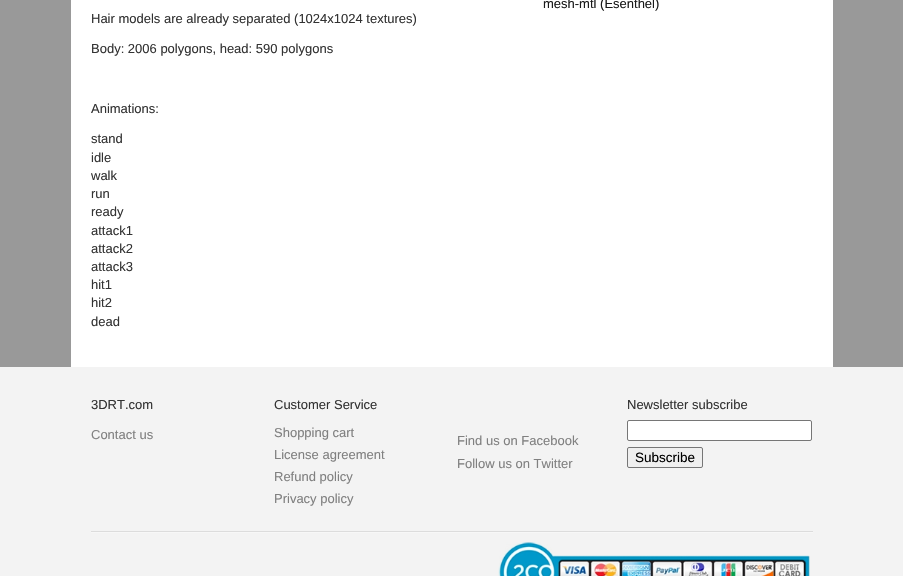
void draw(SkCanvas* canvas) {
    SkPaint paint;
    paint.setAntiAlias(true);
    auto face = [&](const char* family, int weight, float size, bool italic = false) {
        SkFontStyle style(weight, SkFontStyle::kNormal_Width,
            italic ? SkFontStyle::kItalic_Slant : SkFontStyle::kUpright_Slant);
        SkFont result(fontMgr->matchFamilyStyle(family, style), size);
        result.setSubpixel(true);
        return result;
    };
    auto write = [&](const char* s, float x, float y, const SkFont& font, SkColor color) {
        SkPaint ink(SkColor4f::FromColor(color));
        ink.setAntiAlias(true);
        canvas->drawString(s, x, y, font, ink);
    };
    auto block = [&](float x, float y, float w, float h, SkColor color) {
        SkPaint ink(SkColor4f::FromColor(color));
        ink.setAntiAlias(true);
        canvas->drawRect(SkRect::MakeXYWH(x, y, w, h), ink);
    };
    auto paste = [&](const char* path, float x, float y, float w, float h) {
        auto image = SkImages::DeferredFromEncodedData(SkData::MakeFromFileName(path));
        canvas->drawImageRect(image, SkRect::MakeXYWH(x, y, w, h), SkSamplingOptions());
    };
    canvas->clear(SkColorSetRGB(153, 153, 153));
    block(71, 0, 762, 367, SK_ColorWHITE);
    auto kFont1 = face("Liberation Sans", 400, 13);
    write("mesh-mtl (Esenthel)", 543, 8, kFont1, SkColorSetRGB(26, 26, 26));
    write("Hair models are already separated (1024x1024 textures)", 91, 23, kFont1, SkColorSetRGB(51, 51, 51));
    write("Body: 2006 polygons, head: 590 polygons", 91, 53, kFont1, SkColorSetRGB(51, 51, 51));
    write("Animations:", 91, 113, kFont1, SkColorSetRGB(51, 51, 51));
    write("stand", 91, 143, kFont1, SkColorSetRGB(51, 51, 51));
    write("idle", 91, 162, kFont1, SkColorSetRGB(51, 51, 51));
    write("walk", 91, 180, kFont1, SkColorSetRGB(51, 51, 51));
    write("run", 91, 198, kFont1, SkColorSetRGB(51, 51, 51));
    write("ready", 91, 216, kFont1, SkColorSetRGB(51, 51, 51));
    write("attack1", 91, 235, kFont1, SkColorSetRGB(51, 51, 51));
    write("attack2", 91, 253, kFont1, SkColorSetRGB(51, 51, 51));
    write("attack3", 91, 271, kFont1, SkColorSetRGB(51, 51, 51));
    write("hit1", 91, 289, kFont1, SkColorSetRGB(51, 51, 51));
    write("hit2", 91, 307, kFont1, SkColorSetRGB(51, 51, 51));
    write("dead", 91, 326, kFont1, SkColorSetRGB(51, 51, 51));
    block(0, 367, 903, 209, SkColorSetRGB(243, 243, 243));
    block(91, 532, 722, 1, SkColorSetRGB(247, 247, 247));
    block(91, 531, 722, 1, SkColorSetRGB(220, 220, 220));
    write("3DRT.com", 91, 409, kFont1, SkColorSetRGB(51, 51, 51));
    write("Contact us", 91, 439, kFont1, SkColorSetRGB(128, 128, 128));
    write("Customer Service", 274, 409, kFont1, SkColorSetRGB(51, 51, 51));
    write("Shopping cart", 274, 437, kFont1, SkColorSetRGB(128, 128, 128));
    write("License agreement", 274, 459, kFont1, SkColorSetRGB(128, 128, 128));
    write("Refund policy", 274, 481, kFont1, SkColorSetRGB(128, 128, 128));
    write("Privacy policy", 274, 503, kFont1, SkColorSetRGB(128, 128, 128));
    write("Find us on Facebook", 457, 445, kFont1, SkColorSetRGB(128, 128, 128));
    write("Follow us on Twitter", 457, 468, kFont1, SkColorSetRGB(128, 128, 128));
    write("Newsletter subscribe", 627, 409, kFont1, SkColorSetRGB(51, 51, 51));
    paint.setColor(SK_ColorWHITE);
    canvas->drawRoundRect(SkRect::MakeXYWH(627.5f, 420.5f, 184, 20), 1.5f, 1.5f, paint);
    paint.setStyle(SkPaint::kStroke_Style);
    paint.setStrokeWidth(1);
    paint.setColor(SkColorSetRGB(118, 118, 118));
    canvas->drawRoundRect(SkRect::MakeXYWH(627.5f, 420.5f, 184, 20), 1.5f, 1.5f, paint);
    paint.setStyle(SkPaint::kFill_Style);
    paint.setColor(SkColorSetRGB(239, 239, 239));
    canvas->drawRoundRect(SkRect::MakeXYWH(627.5f, 447.5f, 75, 20), 1.5f, 1.5f, paint);
    paint.setStyle(SkPaint::kStroke_Style);
    paint.setColor(SkColorSetRGB(118, 118, 118));
    canvas->drawRoundRect(SkRect::MakeXYWH(627.5f, 447.5f, 75, 20), 1.5f, 1.5f, paint);
    auto kFont2 = face("Liberation Sans", 400, 13.5f);
    write("Subscribe", 635, 462, kFont2, SK_ColorBLACK);
    paste("pic1.png", 498, 542, 312, 34);
}
